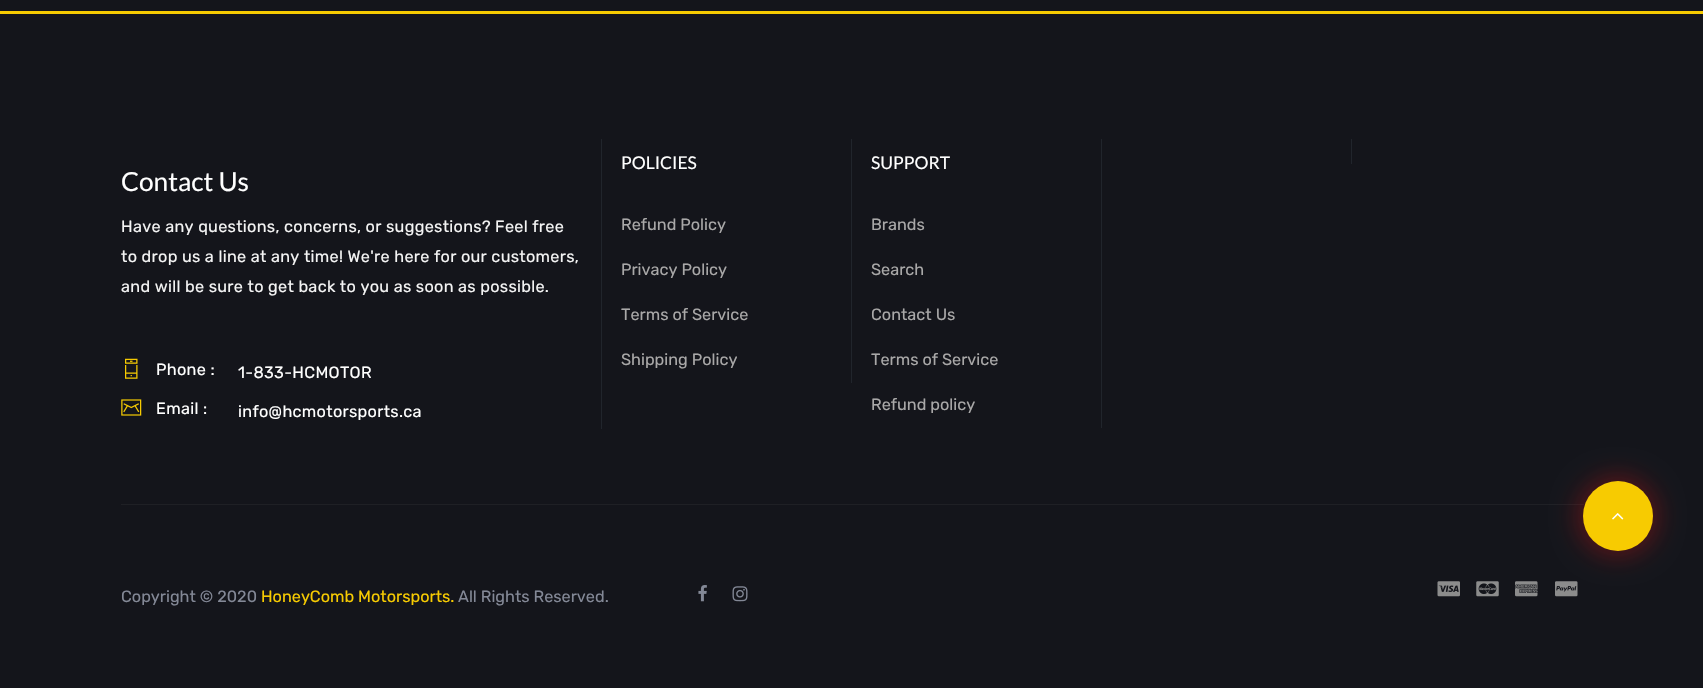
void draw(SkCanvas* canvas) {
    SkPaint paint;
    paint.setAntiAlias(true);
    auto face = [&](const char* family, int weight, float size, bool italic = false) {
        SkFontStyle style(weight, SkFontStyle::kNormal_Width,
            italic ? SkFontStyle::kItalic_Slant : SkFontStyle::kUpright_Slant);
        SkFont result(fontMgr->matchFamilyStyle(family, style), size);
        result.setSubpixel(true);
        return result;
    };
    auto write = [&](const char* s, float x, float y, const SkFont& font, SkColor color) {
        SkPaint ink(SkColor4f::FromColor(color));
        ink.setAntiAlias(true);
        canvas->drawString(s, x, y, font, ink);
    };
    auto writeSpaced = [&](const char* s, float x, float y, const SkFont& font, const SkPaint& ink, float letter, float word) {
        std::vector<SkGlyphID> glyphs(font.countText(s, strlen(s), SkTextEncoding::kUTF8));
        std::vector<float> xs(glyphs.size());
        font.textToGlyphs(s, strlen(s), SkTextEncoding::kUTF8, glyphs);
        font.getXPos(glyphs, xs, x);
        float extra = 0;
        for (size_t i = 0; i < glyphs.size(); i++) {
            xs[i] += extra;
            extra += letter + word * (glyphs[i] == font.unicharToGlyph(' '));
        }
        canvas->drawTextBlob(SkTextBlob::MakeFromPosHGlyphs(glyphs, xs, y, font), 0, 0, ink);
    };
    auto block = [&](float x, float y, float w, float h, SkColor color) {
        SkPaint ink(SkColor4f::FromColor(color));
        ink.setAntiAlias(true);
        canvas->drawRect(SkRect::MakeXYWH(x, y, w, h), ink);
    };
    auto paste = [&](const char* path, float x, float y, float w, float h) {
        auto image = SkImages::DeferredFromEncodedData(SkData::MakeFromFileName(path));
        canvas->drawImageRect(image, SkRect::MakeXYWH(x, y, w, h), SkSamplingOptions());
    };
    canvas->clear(SkColorSetRGB(20, 21, 27));
    block(0, 11, 1703, 3, SkColorSetRGB(247, 203, 1));
    block(1351, 139, 1, 25, SkColorSetRGB(33, 37, 44));
    block(601, 139, 1, 290, SkColorSetRGB(33, 37, 44));
    auto kFont1 = face("Lato", 400, 26.25f);
    write("Contact Us", 121, 191, kFont1, SK_ColorWHITE);
    auto kFont2 = face("Rubik", 400, 16.25f);
    paint.setColor(SkColorSetRGB(244, 244, 244));
    writeSpaced("Have any questions, concerns, or suggestions? Feel free", 121, 232, kFont2, paint, 0.3f, 0);
    writeSpaced("to drop us a line at any time! We're here for our customers,", 121, 262, kFont2, paint, 0.3f, 0);
    writeSpaced("and will be sure to get back to you as soon as possible.", 121, 292, kFont2, paint, 0.3f, 0);
    paste("pic1.png", 125, 358, 13, 21);
    paint.setColor(SK_ColorWHITE);
    writeSpaced("Phone :", 156, 375, kFont2, paint, 0.3f, 0);
    writeSpaced("1-833-HCMOTOR", 238, 378, kFont2, paint, 0.3f, 0);
    paste("pic2.png", 121, 399, 21, 17);
    writeSpaced("Email :", 156, 414, kFont2, paint, 0.3f, 0);
    writeSpaced("info@hcmotorsports.ca", 238, 417, kFont2, paint, 0.3f, 0);
    block(851, 139, 1, 244, SkColorSetRGB(33, 37, 44));
    auto kFont3 = face("Lato", 400, 17.5f);
    write("POLICIES", 621, 169, kFont3, SK_ColorWHITE);
    write("Refund Policy", 621, 230, kFont2, SkColorSetRGB(169, 168, 168));
    write("Privacy Policy", 621, 275, kFont2, SkColorSetRGB(169, 168, 168));
    write("Terms of Service", 621, 320, kFont2, SkColorSetRGB(169, 168, 168));
    write("Shipping Policy", 621, 365, kFont2, SkColorSetRGB(169, 168, 168));
    block(1101, 139, 1, 289, SkColorSetRGB(33, 37, 44));
    write("SUPPORT", 871, 169, kFont3, SK_ColorWHITE);
    write("Brands", 871, 230, kFont2, SkColorSetRGB(169, 168, 168));
    write("Search", 871, 275, kFont2, SkColorSetRGB(169, 168, 168));
    write("Contact Us", 871, 320, kFont2, SkColorSetRGB(169, 168, 168));
    write("Terms of Service", 871, 365, kFont2, SkColorSetRGB(169, 168, 168));
    write("Refund policy", 871, 410, kFont2, SkColorSetRGB(169, 168, 168));
    block(121, 504, 1463, 1, SkColorSetRGB(31, 32, 37));
    write("Copyright © 2020", 121, 602, kFont2, SkColorSetRGB(131, 136, 150));
    write("HoneyComb Motorsports.", 261, 602, kFont2, SkColorSetRGB(247, 203, 1));
    write("All Rights Reserved.", 458, 602, kFont2, SkColorSetRGB(131, 136, 150));
    paste("pic3.png", 698, 585, 9, 17);
    paste("pic4.png", 732, 586, 16, 16);
    paste("pic5.png", 1437, 581, 23, 16);
    paste("pic6.png", 1476, 581, 23, 16);
    paste("pic7.png", 1515, 581, 23, 16);
    paste("pic8.png", 1555, 581, 23, 16);
    paint.setColor(SkColorSetARGB(77, 229, 21, 21));
    paint.setMaskFilter(SkMaskFilter::MakeBlur(kNormal_SkBlurStyle, 12.5f));
    canvas->drawRoundRect(SkRect::MakeXYWH(1576, 475, 83, 83), 41.5f, 41.5f, paint);
    paint.setMaskFilter(nullptr);
    paint.setColor(SkColorSetRGB(247, 203, 1));
    canvas->drawCircle(1618, 516, 35, paint);
    paste("pic9.png", 1612, 513, 12, 7);
}
